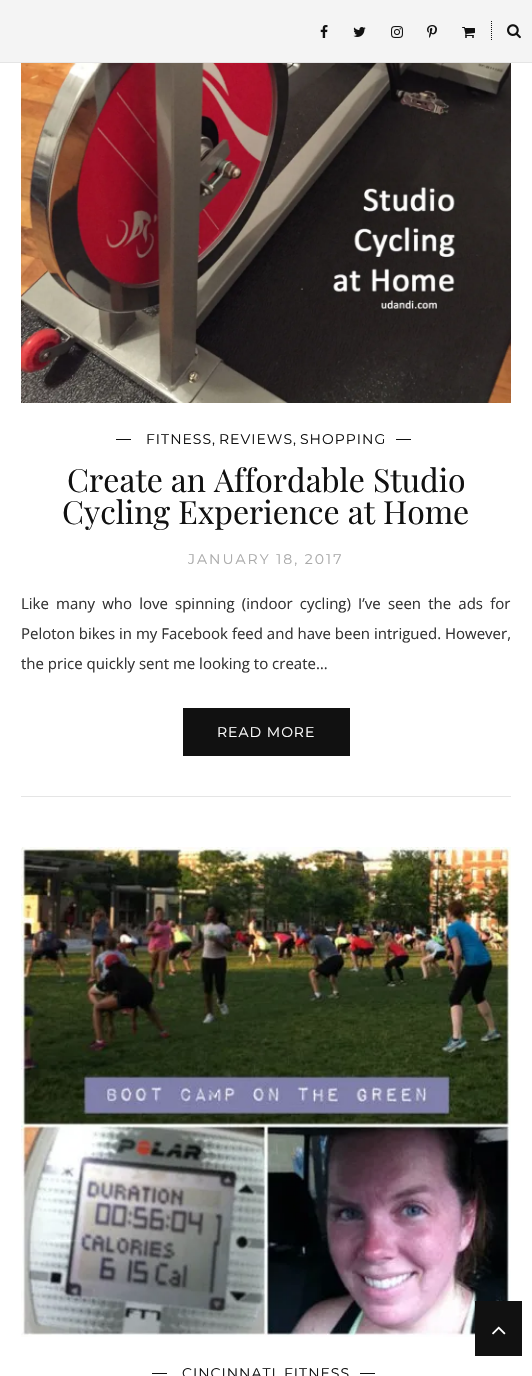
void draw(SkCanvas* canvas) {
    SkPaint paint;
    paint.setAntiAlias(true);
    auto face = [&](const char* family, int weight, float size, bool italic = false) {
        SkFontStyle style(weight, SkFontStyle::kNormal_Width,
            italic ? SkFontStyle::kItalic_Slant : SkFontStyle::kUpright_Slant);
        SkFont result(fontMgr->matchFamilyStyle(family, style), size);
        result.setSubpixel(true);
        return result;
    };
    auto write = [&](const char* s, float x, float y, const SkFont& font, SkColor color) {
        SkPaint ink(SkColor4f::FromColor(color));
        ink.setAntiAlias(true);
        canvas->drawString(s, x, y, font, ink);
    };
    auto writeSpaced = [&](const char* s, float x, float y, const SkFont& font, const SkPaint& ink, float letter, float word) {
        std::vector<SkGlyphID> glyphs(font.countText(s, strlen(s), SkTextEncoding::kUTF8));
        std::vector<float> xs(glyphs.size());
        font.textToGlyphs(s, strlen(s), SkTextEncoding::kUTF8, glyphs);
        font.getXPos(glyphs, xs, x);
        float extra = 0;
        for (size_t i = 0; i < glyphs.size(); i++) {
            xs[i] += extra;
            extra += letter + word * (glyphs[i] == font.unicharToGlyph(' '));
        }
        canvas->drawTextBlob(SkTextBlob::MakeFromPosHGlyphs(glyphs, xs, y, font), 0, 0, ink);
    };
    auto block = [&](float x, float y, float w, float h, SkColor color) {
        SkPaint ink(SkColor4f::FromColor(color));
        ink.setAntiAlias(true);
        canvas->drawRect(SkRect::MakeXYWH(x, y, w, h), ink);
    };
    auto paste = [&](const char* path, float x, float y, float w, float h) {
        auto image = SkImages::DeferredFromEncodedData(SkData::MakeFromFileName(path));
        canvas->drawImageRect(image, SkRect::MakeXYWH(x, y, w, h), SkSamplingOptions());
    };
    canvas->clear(SK_ColorWHITE);
    block(0, 0, 532, 62, SkColorSetRGB(244, 244, 244));
    block(0, 62, 532, 1, SkColorSetRGB(229, 229, 229));
    paste("pic1.png", 320, 25, 8, 13);
    paste("pic2.png", 353, 27, 13, 10);
    paste("pic3.png", 391, 26, 12, 12);
    paste("pic4.png", 427, 25, 10, 13);
    paste("pic5.png", 462, 27, 13, 11);
    paint.setStyle(SkPaint::kStroke_Style);
    paint.setStrokeWidth(1);
    paint.setColor(SkColorSetRGB(17, 17, 17));
    paint.setPathEffect(SkDashPathEffect::Make({{1, 1}}, 0));
    canvas->drawPath(SkPathBuilder().moveTo(491.5f, 21).lineTo(491.5f, 40).detach(), paint);
    paint.setPathEffect(nullptr);
    paste("pic6.png", 507, 24, 14, 15);
    block(21, 796, 490, 1, SkColorSetRGB(229, 229, 229));
    paste("pic7.png", 21, 63, 490, 340);
    block(116, 439, 15, 1, SkColorSetRGB(17, 17, 17));
    auto kFont1 = face("Montserrat", 400, 14);
    paint.setStyle(SkPaint::kFill_Style);
    writeSpaced("FITNESS", 146, 444, kFont1, paint, 1, 0);
    writeSpaced("REVIEWS", 219, 444, kFont1, paint, 1, 0);
    writeSpaced("SHOPPING", 300, 444, kFont1, paint, 1, 0);
    block(396, 439, 15, 1, SkColorSetRGB(17, 17, 17));
    write(",", 212, 444, kFont1, SkColorSetRGB(17, 17, 17));
    write(",", 293, 444, kFont1, SkColorSetRGB(17, 17, 17));
    auto kFont2 = face("Playfair Display", 400, 32);
    write("Create an Affordable Studio", 67, 492, kFont2, SkColorSetRGB(17, 17, 17));
    write("Cycling Experience at Home", 62, 524, kFont2, SkColorSetRGB(17, 17, 17));
    paint.setColor(SkColorSetRGB(170, 170, 170));
    writeSpaced("JANUARY 18, 2017", 188, 564, kFont1, paint, 2, 0);
    auto kFont3 = face("Open Sans", 400, 15);
    paint.setColor(SkColorSetRGB(52, 52, 52));
    writeSpaced("Like many who love spinning (indoor cycling) I’ve seen the ads for", 21, 609, kFont3, paint, 0, 3.25f);
    write("Peloton bikes in my Facebook feed and have been intrigued. However,", 21, 639, kFont3, SkColorSetRGB(52, 52, 52));
    write("the price quickly sent me looking to create…", 21, 669, kFont3, SkColorSetRGB(52, 52, 52));
    block(183, 708, 167, 48, SkColorSetRGB(17, 17, 17));
    paint.setColor(SK_ColorWHITE);
    writeSpaced("READ MORE", 217, 737, kFont1, paint, 1, 0);
    paste("pic8.png", 21, 847, 490, 490);
    block(152, 1373, 15, 1, SkColorSetRGB(17, 17, 17));
    paint.setColor(SkColorSetRGB(17, 17, 17));
    writeSpaced("CINCINNATI", 182, 1378, kFont1, paint, 1, 0);
    writeSpaced("FITNESS", 284, 1378, kFont1, paint, 1, 0);
    block(360, 1373, 15, 1, SkColorSetRGB(17, 17, 17));
    block(475, 1301, 47, 55, SkColorSetRGB(17, 17, 17));
    paste("pic9.png", 492, 1326, 14, 9);
}
